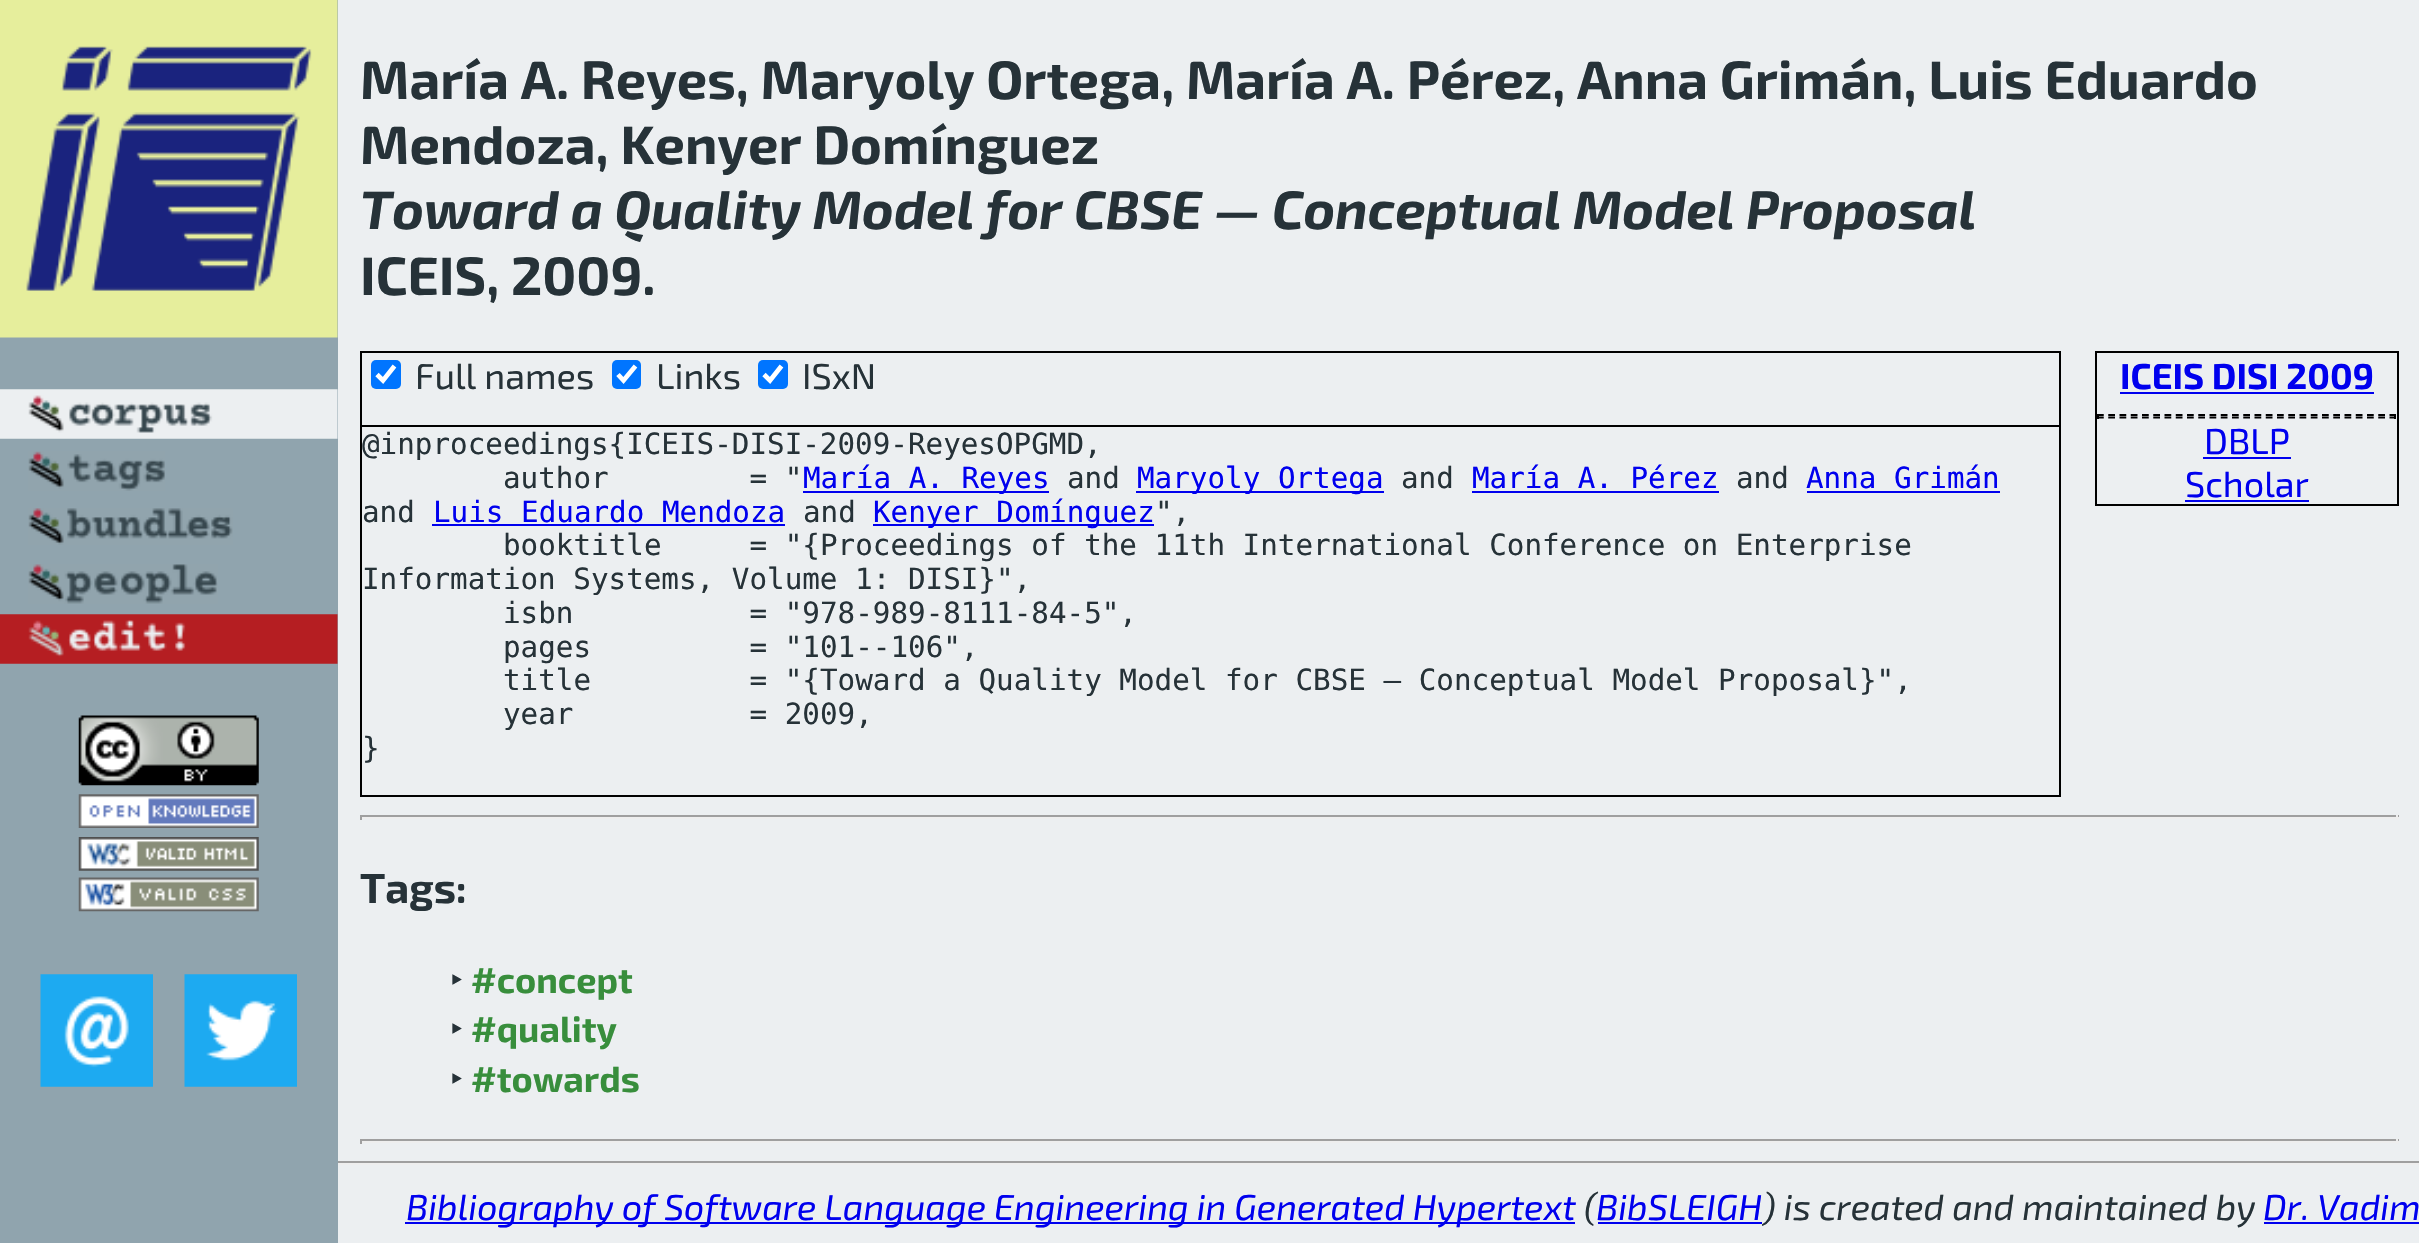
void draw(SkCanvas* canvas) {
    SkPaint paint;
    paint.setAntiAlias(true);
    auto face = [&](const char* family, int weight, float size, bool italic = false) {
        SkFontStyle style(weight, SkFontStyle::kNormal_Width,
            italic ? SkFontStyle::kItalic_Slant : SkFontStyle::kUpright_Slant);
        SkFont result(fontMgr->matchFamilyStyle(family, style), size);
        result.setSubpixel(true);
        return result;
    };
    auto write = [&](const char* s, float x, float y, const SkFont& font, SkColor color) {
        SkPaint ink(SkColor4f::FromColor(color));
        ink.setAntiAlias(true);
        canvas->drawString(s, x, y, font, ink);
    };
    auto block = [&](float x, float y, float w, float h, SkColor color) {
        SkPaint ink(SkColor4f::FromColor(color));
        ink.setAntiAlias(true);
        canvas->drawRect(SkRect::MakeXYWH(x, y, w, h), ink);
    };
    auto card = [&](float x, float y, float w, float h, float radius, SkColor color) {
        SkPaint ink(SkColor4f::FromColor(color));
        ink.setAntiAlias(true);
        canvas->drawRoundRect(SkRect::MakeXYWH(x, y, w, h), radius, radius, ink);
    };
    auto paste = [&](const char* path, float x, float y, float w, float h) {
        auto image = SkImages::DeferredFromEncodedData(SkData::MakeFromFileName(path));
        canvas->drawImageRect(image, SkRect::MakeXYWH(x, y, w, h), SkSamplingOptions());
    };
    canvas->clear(SkColorSetRGB(236, 239, 241));
    block(0, 0, 338, 1243, SkColorSetRGB(144, 164, 174));
    paste("pic1.png", 0, 0, 338, 338);
    paste("pic2.png", 0, 389, 338, 50);
    paste("pic3.png", 28, 451, 137, 40);
    paste("pic4.png", 28, 508, 205, 37);
    paste("pic5.png", 28, 564, 190, 40);
    paste("pic6.png", 0, 614, 338, 50);
    paste("pic7.png", 78, 715, 181, 71);
    paste("pic8.png", 78, 794, 181, 34);
    paste("pic9.png", 78, 837, 181, 34);
    paste("pic10.png", 78, 877, 181, 35);
    paste("pic11.png", 40, 974, 113, 113);
    paste("pic12.png", 184, 974, 113, 113);
    auto kFont1 = face("Exo 2", 700, 54);
    write("María A. Reyes, Maryoly Ortega, María A. Pérez, Anna Grimán, Luis Eduardo", 360, 99, kFont1, SkColorSetRGB(38, 50, 56));
    write("Mendoza, Kenyer Domínguez", 360, 164, kFont1, SkColorSetRGB(38, 50, 56));
    auto kFont2 = face("Exo 2", 700, 54, true);
    write("Toward a Quality Model for CBSE — Conceptual Model Proposal", 360, 229, kFont2, SkColorSetRGB(38, 50, 56));
    write("ICEIS, 2009.", 360, 295, kFont1, SkColorSetRGB(38, 50, 56));
    paint.setStyle(SkPaint::kStroke_Style);
    paint.setStrokeWidth(2);
    paint.setColor(SK_ColorBLACK);
    canvas->drawRect(SkRect::MakeXYWH(361, 352, 1699, 444), paint);
    card(371, 360, 30, 29, 5, SkColorSetRGB(0, 117, 255));
    paint.setStrokeWidth(4.7f);
    paint.setColor(SK_ColorWHITE);
    canvas->drawPath(SkPathBuilder().moveTo(377, 374.5f).lineTo(383, 380.5f).lineTo(394.5f, 366).detach(), paint);
    auto kFont3 = face("Exo 2", 400, 36);
    write("Full names", 415, 389, kFont3, SkColorSetRGB(38, 50, 56));
    card(612, 360, 29, 29, 5, SkColorSetRGB(0, 117, 255));
    canvas->drawPath(SkPathBuilder().moveTo(618, 374.5f).lineTo(623.5f, 380.5f).lineTo(635.5f, 366).detach(), paint);
    write("Links", 656, 389, kFont3, SkColorSetRGB(38, 50, 56));
    card(758, 360, 30, 29, 5, SkColorSetRGB(0, 117, 255));
    canvas->drawPath(SkPathBuilder().moveTo(764, 374.5f).lineTo(770, 380.5f).lineTo(781.5f, 366).detach(), paint);
    write("ISxN", 802, 389, kFont3, SkColorSetRGB(38, 50, 56));
    block(362, 425, 1697, 2, SK_ColorBLACK);
    auto kFont4 = face("DejaVu Sans Mono", 400, 29.25f);
    write("@inproceedings{ICEIS-DISI-2009-ReyesOPGMD,", 362, 454, kFont4, SkColorSetRGB(38, 50, 56));
    write("author        = \"", 503, 488, kFont4, SkColorSetRGB(38, 50, 56));
    block(803, 491, 246, 2, SkColorSetRGB(0, 0, 238));
    write("María A. Reyes", 803, 488, kFont4, SkColorSetRGB(0, 0, 238));
    write("and", 1067, 488, kFont4, SkColorSetRGB(38, 50, 56));
    block(1136, 491, 248, 2, SkColorSetRGB(0, 0, 238));
    write("Maryoly Ortega", 1137, 488, kFont4, SkColorSetRGB(0, 0, 238));
    write("and", 1401, 488, kFont4, SkColorSetRGB(38, 50, 56));
    write("María A. Pérez", 1472, 488, kFont4, SkColorSetRGB(0, 0, 238));
    block(1472, 491, 247, 2, SkColorSetRGB(0, 0, 238));
    write("and", 1736, 488, kFont4, SkColorSetRGB(38, 50, 56));
    write("Anna Grimán", 1806, 488, kFont4, SkColorSetRGB(0, 0, 238));
    block(1807, 491, 193, 2, SkColorSetRGB(0, 0, 238));
    write("and", 362, 522, kFont4, SkColorSetRGB(38, 50, 56));
    write("Luis Eduardo Mendoza", 433, 522, kFont4, SkColorSetRGB(0, 0, 238));
    block(432, 524, 353, 2, SkColorSetRGB(0, 0, 238));
    write("and", 803, 522, kFont4, SkColorSetRGB(38, 50, 56));
    block(873, 524, 281, 2, SkColorSetRGB(0, 0, 238));
    write("Kenyer Domínguez", 873, 522, kFont4, SkColorSetRGB(0, 0, 238));
    write("\",", 1155, 522, kFont4, SkColorSetRGB(38, 50, 56));
    write("booktitle     = \"{Proceedings of the 11th International Conference on Enterprise", 503, 555, kFont4, SkColorSetRGB(38, 50, 56));
    write("Information Systems, Volume 1: DISI}\",", 362, 589, kFont4, SkColorSetRGB(38, 50, 56));
    write("isbn          = \"978-989-8111-84-5\",", 503, 623, kFont4, SkColorSetRGB(38, 50, 56));
    write("pages         = \"101--106\",", 503, 657, kFont4, SkColorSetRGB(38, 50, 56));
    write("title         = \"{Toward a Quality Model for CBSE — Conceptual Model Proposal}\",", 503, 690, kFont4, SkColorSetRGB(38, 50, 56));
    write("year          = 2009,", 503, 724, kFont4, SkColorSetRGB(38, 50, 56));
    write("}", 362, 758, kFont4, SkColorSetRGB(38, 50, 56));
    paint.setStrokeWidth(2);
    paint.setColor(SK_ColorBLACK);
    canvas->drawRect(SkRect::MakeXYWH(2096, 352, 302, 153), paint);
    auto kFont5 = face("Exo 2", 700, 36);
    write("ICEIS DISI 2009", 2120, 389, kFont5, SkColorSetRGB(0, 0, 238));
    block(2120, 392, 254, 2, SkColorSetRGB(0, 0, 238));
    paint.setStrokeWidth(2.2f);
    paint.setPathEffect(SkDashPathEffect::Make({{6.75f, 4.5f}}, 0));
    canvas->drawPath(SkPathBuilder().moveTo(2097, 415).lineTo(2396, 415).detach(), paint);
    paint.setPathEffect(nullptr);
    block(2394, 414, 2, 5, SK_ColorBLACK);
    paint.setPathEffect(SkDashPathEffect::Make({{6.75f, 4.5f}}, 0));
    canvas->drawPath(SkPathBuilder().moveTo(2097, 417.5f).lineTo(2396, 417.5f).detach(), paint);
    paint.setPathEffect(nullptr);
    block(2097, 414, 2, 5, SK_ColorBLACK);
    write("DBLP", 2204, 454, kFont3, SkColorSetRGB(0, 0, 238));
    block(2203, 457, 88, 2, SkColorSetRGB(0, 0, 238));
    write("Scholar", 2185, 497, kFont3, SkColorSetRGB(0, 0, 238));
    block(2185, 500, 124, 2, SkColorSetRGB(0, 0, 238));
    block(360, 815, 2039, 2, SkColorSetRGB(159, 159, 159));
    block(2396, 815, 2, 5, SkColorSetRGB(238, 238, 238));
    block(360, 817, 2039, 2, SkColorSetRGB(238, 238, 238));
    block(360, 815, 2, 5, SkColorSetRGB(159, 159, 159));
    auto kFont6 = face("Exo 2", 700, 42);
    write("Tags:", 360, 903, kFont6, SkColorSetRGB(38, 50, 56));
    auto kFont7 = face("Noto Sans", 400, 36);
    write("‣", 450, 993, kFont7, SkColorSetRGB(38, 50, 56));
    write("#concept", 471, 993, kFont5, SkColorSetRGB(56, 142, 60));
    write("‣", 450, 1042, kFont7, SkColorSetRGB(38, 50, 56));
    write("#quality", 471, 1042, kFont5, SkColorSetRGB(56, 142, 60));
    write("‣", 450, 1092, kFont7, SkColorSetRGB(38, 50, 56));
    write("#towards", 471, 1092, kFont5, SkColorSetRGB(56, 142, 60));
    block(360, 1139, 2039, 2, SkColorSetRGB(159, 159, 159));
    block(2396, 1139, 2, 5, SkColorSetRGB(238, 238, 238));
    block(360, 1141, 2039, 2, SkColorSetRGB(238, 238, 238));
    block(360, 1139, 2, 5, SkColorSetRGB(159, 159, 159));
    block(338, 1161, 2081, 2, SkColorSetRGB(159, 159, 159));
    block(338, 1163, 2081, 2, SkColorSetRGB(238, 238, 238));
    block(405, 1222, 1170, 2, SkColorSetRGB(0, 0, 238));
    auto kFont8 = face("Exo 2", 400, 36, true);
    write("Bibliography of Software Language Engineering in Generated Hypertext", 406, 1220, kFont8, SkColorSetRGB(0, 0, 238));
    write("(", 1584, 1220, kFont8, SkColorSetRGB(38, 50, 56));
    write("BibSLEIGH", 1596, 1220, kFont8, SkColorSetRGB(0, 0, 238));
    block(1598, 1222, 164, 2, SkColorSetRGB(0, 0, 238));
    write(") is created and maintained by", 1763, 1220, kFont8, SkColorSetRGB(38, 50, 56));
    write("Dr. Vadim", 2263, 1220, kFont8, SkColorSetRGB(0, 0, 238));
    block(2264, 1222, 155, 2, SkColorSetRGB(0, 0, 238));
}
